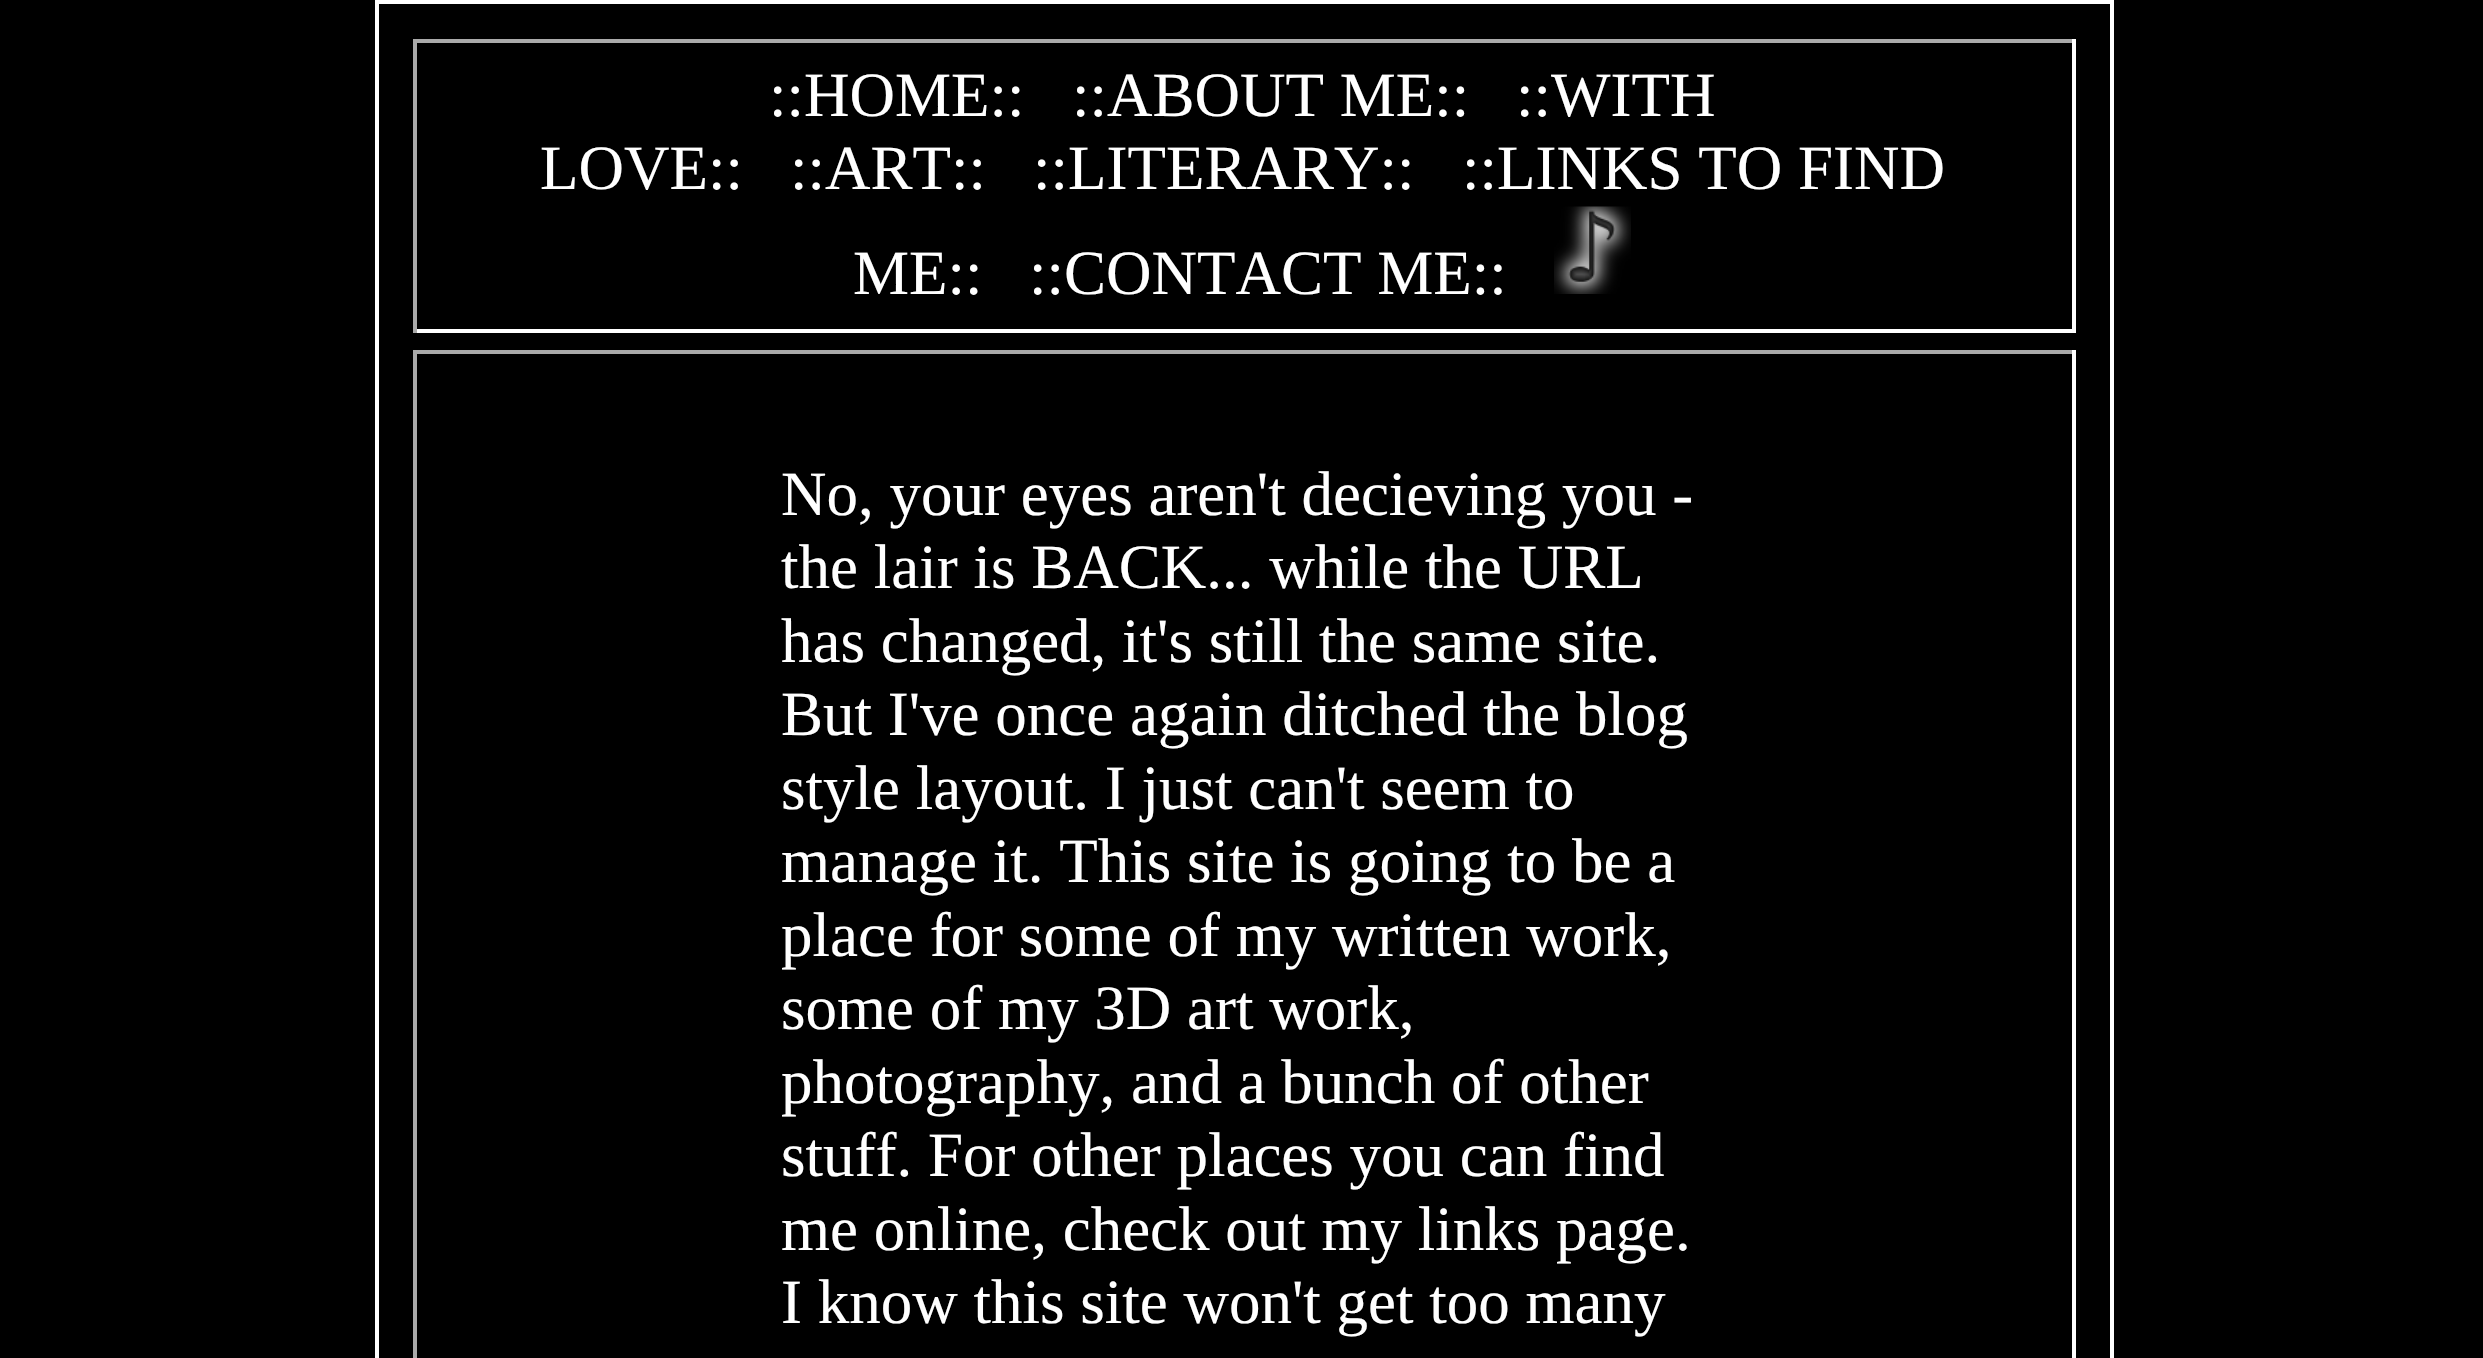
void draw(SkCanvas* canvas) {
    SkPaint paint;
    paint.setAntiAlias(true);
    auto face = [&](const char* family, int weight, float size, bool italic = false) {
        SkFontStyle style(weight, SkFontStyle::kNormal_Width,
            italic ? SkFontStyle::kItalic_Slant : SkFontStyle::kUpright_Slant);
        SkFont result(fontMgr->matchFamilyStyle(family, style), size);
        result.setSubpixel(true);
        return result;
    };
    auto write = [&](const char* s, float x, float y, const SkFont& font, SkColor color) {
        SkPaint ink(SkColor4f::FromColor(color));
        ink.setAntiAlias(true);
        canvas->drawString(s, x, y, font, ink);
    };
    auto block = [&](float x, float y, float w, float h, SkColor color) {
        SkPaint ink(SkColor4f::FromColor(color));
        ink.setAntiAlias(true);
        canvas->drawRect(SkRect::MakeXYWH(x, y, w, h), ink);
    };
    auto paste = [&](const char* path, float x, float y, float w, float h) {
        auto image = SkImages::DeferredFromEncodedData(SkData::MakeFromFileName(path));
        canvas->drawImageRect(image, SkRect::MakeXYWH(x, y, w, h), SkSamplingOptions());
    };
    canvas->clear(SK_ColorBLACK);
    paint.setStyle(SkPaint::kStroke_Style);
    paint.setStrokeWidth(4);
    paint.setColor(SK_ColorWHITE);
    canvas->drawRect(SkRect::MakeXYWH(377, 2, 1735, 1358), paint);
    block(413, 39, 1663, 4, SkColorSetRGB(170, 170, 170));
    block(2072, 39, 4, 294, SK_ColorWHITE);
    block(413, 329, 1663, 4, SK_ColorWHITE);
    block(413, 39, 4, 294, SkColorSetRGB(170, 170, 170));
    auto kFont1 = face("Liberation Serif", 400, 63);
    write("::HOME::", 769, 116, kFont1, SK_ColorWHITE);
    write("::ABOUT ME::", 1072, 116, kFont1, SK_ColorWHITE);
    write("::WITH", 1516, 116, kFont1, SK_ColorWHITE);
    write("LOVE::", 540, 189, kFont1, SK_ColorWHITE);
    write("::ART::", 790, 189, kFont1, SK_ColorWHITE);
    write("::LITERARY::", 1033, 189, kFont1, SK_ColorWHITE);
    write("::LINKS TO FIND", 1462, 189, kFont1, SK_ColorWHITE);
    write("ME::", 853, 294, kFont1, SK_ColorWHITE);
    write("::CONTACT ME::", 1029, 294, kFont1, SK_ColorWHITE);
    paste("pic1.png", 1554, 206, 77, 88);
    block(413, 350, 1663, 4, SkColorSetRGB(170, 170, 170));
    block(2072, 350, 4, 1008, SK_ColorWHITE);
    block(413, 350, 4, 1008, SkColorSetRGB(170, 170, 170));
    write("No, your eyes aren't decieving you -", 781, 515, kFont1, SK_ColorWHITE);
    write("the lair is BACK... while the URL", 781, 588, kFont1, SK_ColorWHITE);
    write("has changed, it's still the same site.", 781, 662, kFont1, SK_ColorWHITE);
    write("But I've once again ditched the blog", 781, 735, kFont1, SK_ColorWHITE);
    write("style layout. I just can't seem to", 781, 809, kFont1, SK_ColorWHITE);
    write("manage it. This site is going to be a", 781, 882, kFont1, SK_ColorWHITE);
    write("place for some of my written work,", 781, 956, kFont1, SK_ColorWHITE);
    write("some of my 3D art work,", 781, 1029, kFont1, SK_ColorWHITE);
    write("photography, and a bunch of other", 781, 1103, kFont1, SK_ColorWHITE);
    write("stuff. For other places you can find", 781, 1176, kFont1, SK_ColorWHITE);
    write("me online, check out my links page.", 781, 1250, kFont1, SK_ColorWHITE);
    write("I know this site won't get too many", 781, 1323, kFont1, SK_ColorWHITE);
}
